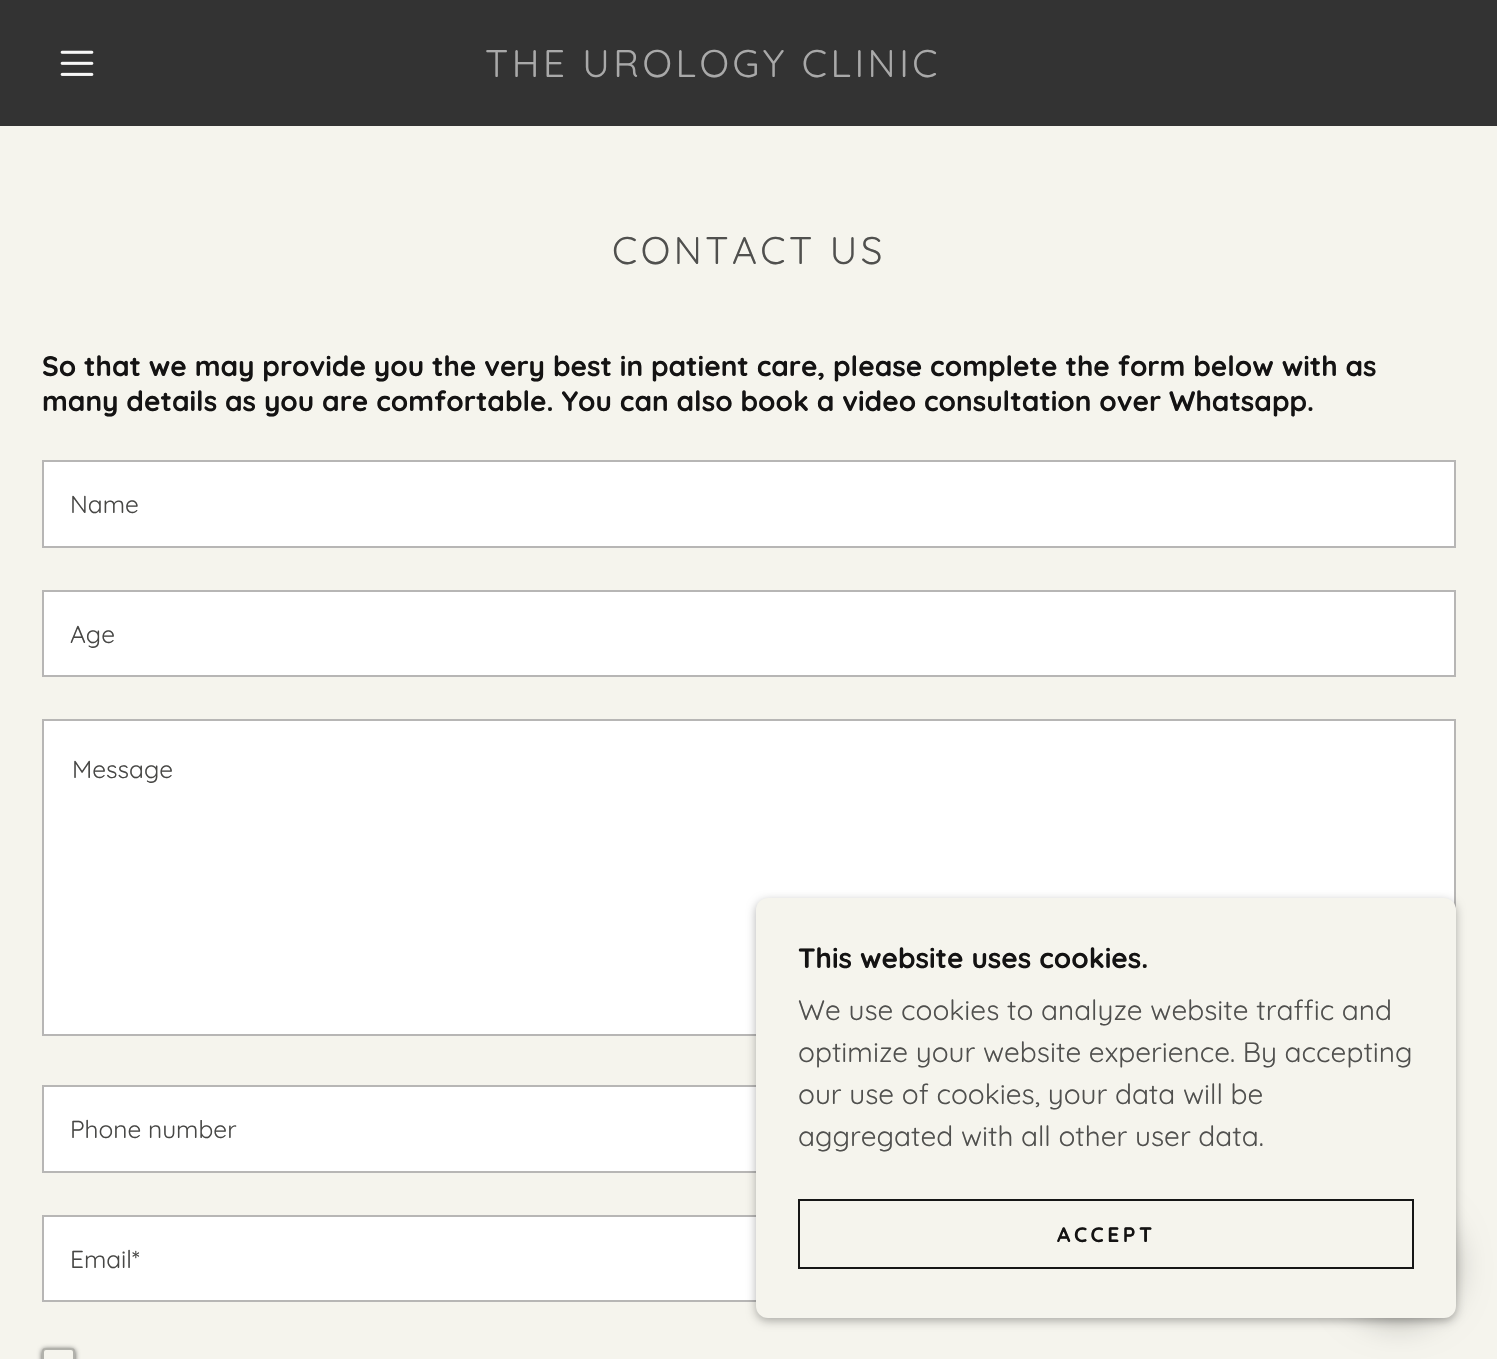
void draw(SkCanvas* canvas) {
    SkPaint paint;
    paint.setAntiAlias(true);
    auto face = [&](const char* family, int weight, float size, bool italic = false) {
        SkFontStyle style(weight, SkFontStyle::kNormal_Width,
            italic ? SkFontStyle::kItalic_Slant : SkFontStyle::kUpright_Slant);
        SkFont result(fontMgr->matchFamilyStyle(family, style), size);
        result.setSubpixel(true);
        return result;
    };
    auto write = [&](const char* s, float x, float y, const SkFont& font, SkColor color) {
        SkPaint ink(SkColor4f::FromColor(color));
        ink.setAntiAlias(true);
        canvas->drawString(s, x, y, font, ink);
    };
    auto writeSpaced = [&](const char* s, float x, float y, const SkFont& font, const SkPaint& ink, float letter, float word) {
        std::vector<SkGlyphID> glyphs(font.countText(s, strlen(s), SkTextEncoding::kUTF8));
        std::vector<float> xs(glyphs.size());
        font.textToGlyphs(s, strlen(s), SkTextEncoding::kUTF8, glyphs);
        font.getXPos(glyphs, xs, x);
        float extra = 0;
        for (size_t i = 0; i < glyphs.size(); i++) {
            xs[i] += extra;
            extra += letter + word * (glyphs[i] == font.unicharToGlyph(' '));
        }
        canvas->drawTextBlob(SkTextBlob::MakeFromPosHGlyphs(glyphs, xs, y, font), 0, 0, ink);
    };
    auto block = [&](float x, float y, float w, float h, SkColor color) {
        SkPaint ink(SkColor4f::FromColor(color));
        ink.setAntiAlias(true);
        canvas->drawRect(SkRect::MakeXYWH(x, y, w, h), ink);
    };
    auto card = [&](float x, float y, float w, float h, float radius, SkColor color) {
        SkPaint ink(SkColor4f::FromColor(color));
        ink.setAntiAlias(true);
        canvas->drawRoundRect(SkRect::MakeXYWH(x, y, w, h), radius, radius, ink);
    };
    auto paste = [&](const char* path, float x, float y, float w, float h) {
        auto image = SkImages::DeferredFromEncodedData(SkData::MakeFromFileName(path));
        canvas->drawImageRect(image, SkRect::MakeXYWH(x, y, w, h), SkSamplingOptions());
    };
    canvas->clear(SkColorSetRGB(245, 244, 237));
    block(0, 0, 1497, 126, SkColorSetRGB(51, 51, 51));
    paste("pic1.png", 60, 50, 34, 26);
    auto kFont1 = face("Quicksand", 400, 38.5f);
    paint.setColor(SkColorSetRGB(169, 169, 169));
    writeSpaced("THE UROLOGY CLINIC", 485, 77, kFont1, paint, 3.5f, 0);
    paint.setColor(SkColorSetRGB(80, 80, 78));
    writeSpaced("CONTACT US", 612, 264, kFont1, paint, 3.5f, 0);
    auto kFont2 = face("Quicksand", 700, 28);
    write("So that we may provide you the very best in patient care, please complete the form below with as", 42, 376, kFont2, SkColorSetRGB(20, 19, 19));
    write("many details as you are comfortable. You can also book a video consultation over Whatsapp.", 42, 411, kFont2, SkColorSetRGB(20, 19, 19));
    paint.setColor(SK_ColorWHITE);
    canvas->drawRect(SkRect::MakeXYWH(43, 461, 1412, 86), paint);
    paint.setStyle(SkPaint::kStroke_Style);
    paint.setStrokeWidth(2);
    paint.setColor(SkColorSetRGB(183, 182, 181));
    canvas->drawRect(SkRect::MakeXYWH(43, 461, 1412, 86), paint);
    auto kFont3 = face("Quicksand", 400, 24.5f);
    write("Name", 70, 513, kFont3, SkColorSetRGB(71, 71, 69));
    paint.setStyle(SkPaint::kFill_Style);
    paint.setColor(SK_ColorWHITE);
    canvas->drawRect(SkRect::MakeXYWH(43, 591, 1412, 85), paint);
    paint.setStyle(SkPaint::kStroke_Style);
    paint.setColor(SkColorSetRGB(183, 182, 181));
    canvas->drawRect(SkRect::MakeXYWH(43, 591, 1412, 85), paint);
    write("Age", 70, 643, kFont3, SkColorSetRGB(71, 71, 69));
    paint.setStyle(SkPaint::kFill_Style);
    paint.setColor(SK_ColorWHITE);
    canvas->drawRect(SkRect::MakeXYWH(43, 720, 1412, 315), paint);
    paint.setStyle(SkPaint::kStroke_Style);
    paint.setColor(SkColorSetRGB(183, 182, 181));
    canvas->drawRect(SkRect::MakeXYWH(43, 720, 1412, 315), paint);
    write("Message", 72, 778, kFont3, SkColorSetRGB(71, 71, 69));
    block(44, 1087, 712, 84, SK_ColorWHITE);
    canvas->drawRect(SkRect::MakeXYWH(43, 1086, 1412, 86), paint);
    write("Phone number", 70, 1138, kFont3, SkColorSetRGB(71, 71, 69));
    block(44, 1217, 712, 83, SK_ColorWHITE);
    canvas->drawRect(SkRect::MakeXYWH(43, 1216, 1412, 85), paint);
    write("Email*", 70, 1268, kFont3, SkColorSetRGB(71, 71, 69));
    canvas->save();
    canvas->clipPath(SkPathBuilder(SkPathFillType::kEvenOdd).moveTo(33, 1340).lineTo(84, 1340).lineTo(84, 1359).lineTo(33, 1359).close().moveTo(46, 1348).lineTo(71, 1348).cubicTo(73, 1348, 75, 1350, 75, 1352).lineTo(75, 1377).cubicTo(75, 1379, 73, 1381, 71, 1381).lineTo(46, 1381).cubicTo(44, 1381, 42, 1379, 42, 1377).lineTo(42, 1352).cubicTo(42, 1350, 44, 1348, 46, 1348).close().detach(), true);
    paint.setStyle(SkPaint::kFill_Style);
    paint.setColor(SkColorSetRGB(80, 80, 78));
    paint.setMaskFilter(SkMaskFilter::MakeBlur(kNormal_SkBlurStyle, 2.5f));
    canvas->drawRoundRect(SkRect::MakeXYWH(42, 1349, 33, 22), 4, 4, paint);
    paint.setMaskFilter(nullptr);
    canvas->restore();
    paint.setStyle(SkPaint::kStroke_Style);
    paint.setColor(SkColorSetARGB(128, 110, 109, 106));
    canvas->drawRoundRect(SkRect::MakeXYWH(43, 1349, 31, 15), 3, 3, paint);
    paint.setStyle(SkPaint::kFill_Style);
    paint.setColor(SkColorSetARGB(77, 0, 0, 0));
    paint.setMaskFilter(SkMaskFilter::MakeBlur(kNormal_SkBlurStyle, 5));
    canvas->drawRoundRect(SkRect::MakeXYWH(756, 901, 700, 420), 12, 12, paint);
    paint.setMaskFilter(nullptr);
    paint.setColor(SkColorSetARGB(64, 0, 0, 0));
    paint.setMaskFilter(SkMaskFilter::MakeBlur(kNormal_SkBlurStyle, 16));
    canvas->drawRoundRect(SkRect::MakeXYWH(1342, 1209, 114, 114), 57, 57, paint);
    paint.setMaskFilter(nullptr);
    card(756, 898, 700, 420, 12, SkColorSetRGB(245, 244, 237));
    write("This website uses cookies.", 798, 968, kFont2, SkColorSetRGB(20, 19, 19));
    auto kFont4 = face("Quicksand", 400, 28);
    write("We use cookies to analyze website traffic and", 798, 1020, kFont4, SkColorSetRGB(80, 80, 78));
    write("optimize your website experience. By accepting", 798, 1062, kFont4, SkColorSetRGB(80, 80, 78));
    write("our use of cookies, your data will be", 798, 1104, kFont4, SkColorSetRGB(80, 80, 78));
    write("aggregated with all other user data.", 798, 1146, kFont4, SkColorSetRGB(80, 80, 78));
    paint.setStyle(SkPaint::kStroke_Style);
    paint.setColor(SkColorSetRGB(22, 22, 22));
    canvas->drawRect(SkRect::MakeXYWH(799, 1200, 614, 68), paint);
    auto kFont5 = face("Quicksand", 700, 21);
    paint.setStyle(SkPaint::kFill_Style);
    paint.setColor(SkColorSetRGB(20, 19, 19));
    writeSpaced("ACCEPT", 1057, 1242, kFont5, paint, 3.5f, 0);
}
